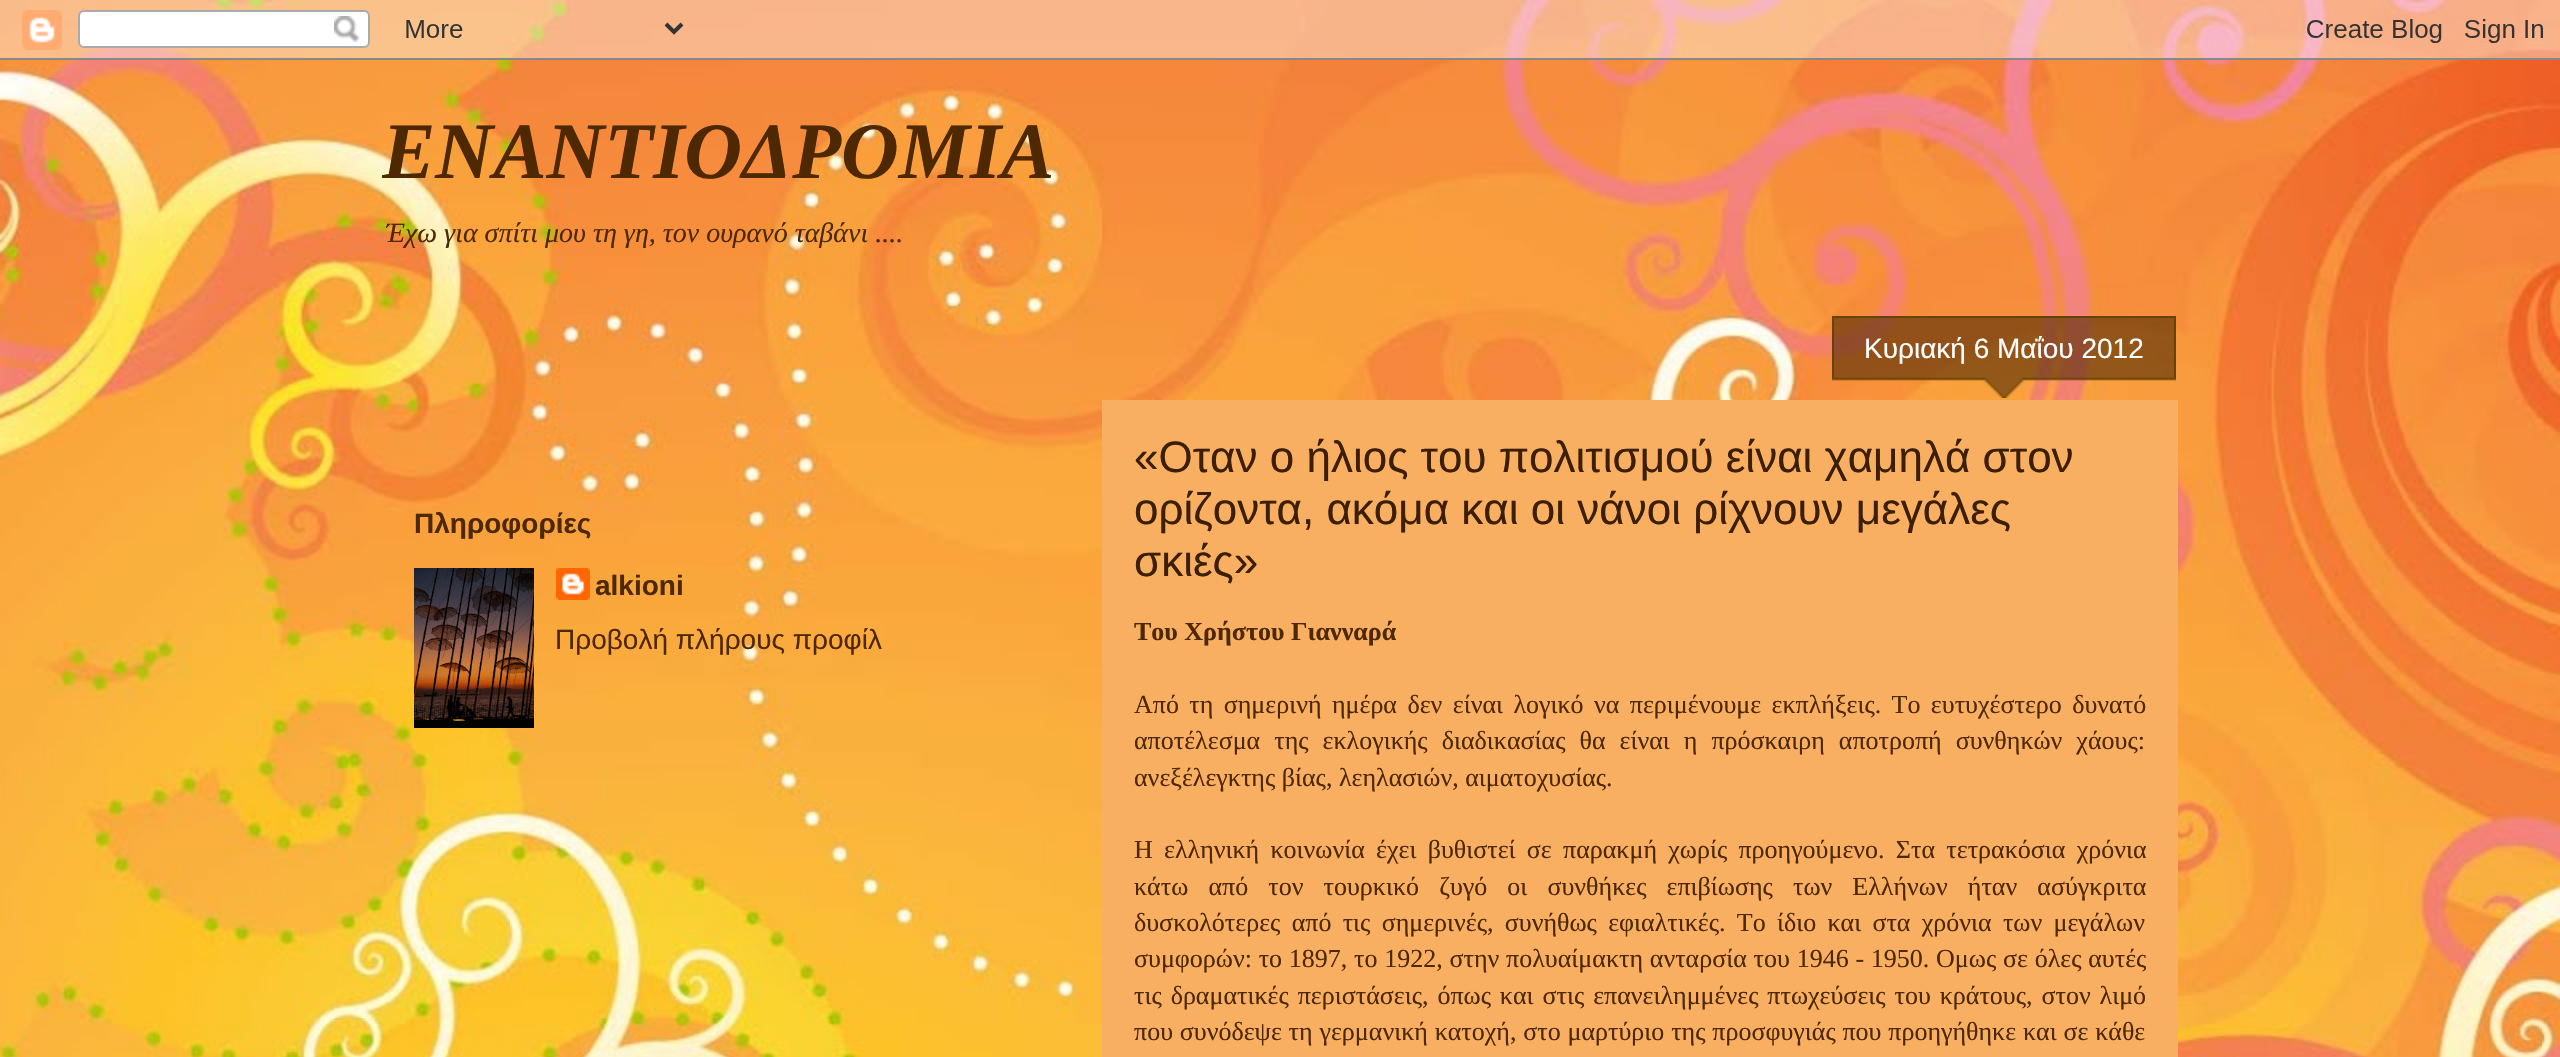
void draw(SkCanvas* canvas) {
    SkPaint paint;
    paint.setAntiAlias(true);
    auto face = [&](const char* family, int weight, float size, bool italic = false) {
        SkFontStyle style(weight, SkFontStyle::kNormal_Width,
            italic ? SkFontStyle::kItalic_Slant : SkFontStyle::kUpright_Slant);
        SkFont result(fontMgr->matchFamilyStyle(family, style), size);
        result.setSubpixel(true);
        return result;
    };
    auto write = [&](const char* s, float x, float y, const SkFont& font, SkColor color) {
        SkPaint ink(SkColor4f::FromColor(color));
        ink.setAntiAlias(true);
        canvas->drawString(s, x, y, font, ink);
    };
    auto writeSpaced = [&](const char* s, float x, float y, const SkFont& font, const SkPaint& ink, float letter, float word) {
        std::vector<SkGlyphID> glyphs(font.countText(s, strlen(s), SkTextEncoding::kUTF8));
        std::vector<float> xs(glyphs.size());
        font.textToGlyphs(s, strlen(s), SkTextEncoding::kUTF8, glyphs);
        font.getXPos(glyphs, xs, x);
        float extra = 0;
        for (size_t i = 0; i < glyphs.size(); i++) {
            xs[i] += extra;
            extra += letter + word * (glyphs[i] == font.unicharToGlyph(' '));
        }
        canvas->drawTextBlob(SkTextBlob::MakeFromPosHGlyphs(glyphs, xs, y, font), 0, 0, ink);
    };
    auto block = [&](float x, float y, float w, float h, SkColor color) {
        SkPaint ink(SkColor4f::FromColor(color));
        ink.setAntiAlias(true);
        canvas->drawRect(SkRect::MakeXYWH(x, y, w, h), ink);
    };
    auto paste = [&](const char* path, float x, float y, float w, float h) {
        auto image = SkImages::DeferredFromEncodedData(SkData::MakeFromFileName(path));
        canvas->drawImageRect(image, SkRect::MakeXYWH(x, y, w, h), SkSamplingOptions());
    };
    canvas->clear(SK_ColorWHITE);
    paste("pic1.png", 0, 0, 2560, 1057);
    paste("pic2.png", 0, 0, 2560, 60);
    canvas->save();
    canvas->clipRect(SkRect::MakeXYWH(382, 60, 1796, 210));
    auto kFont1 = face("Liberation Serif", 700, 80, true);
    write("ΕΝΑΝΤΙΟΔΡΟΜΙΑ", 382, 178, kFont1, SkColorSetRGB(78, 40, 0));
    canvas->restore();
    auto kFont2 = face("Liberation Serif", 400, 28, true);
    write("Έχω για σπίτι μου τη γη, τον ουρανό ταβάνι ....", 386, 242, kFont2, SkColorSetRGB(78, 40, 0));
    auto kFont3 = face("Liberation Sans", 700, 28);
    write("Πληροφορίες", 414, 533, kFont3, SkColorSetRGB(78, 40, 0));
    paste("pic3.png", 414, 568, 120, 160);
    paste("pic4.png", 556, 568, 34, 32);
    write("alkioni", 595, 595, kFont3, SkColorSetRGB(78, 40, 0));
    auto kFont4 = face("Liberation Sans", 400, 28);
    write("Προβολή πλήρους προφίλ", 555, 649, kFont4, SkColorSetRGB(78, 40, 0));
    block(1102, 400, 1076, 657, SkColorSetRGB(248, 175, 97));
    paste("pic5.png", 1832, 318, 344, 80);
    block(1832, 316, 344, 2, SkColorSetRGB(102, 68, 0));
    block(2174, 318, 2, 60, SkColorSetRGB(102, 68, 0));
    block(1832, 318, 2, 60, SkColorSetRGB(102, 68, 0));
    write("Κυριακή 6 Μαΐου 2012", 1864, 358, kFont4, SK_ColorWHITE);
    auto kFont5 = face("Liberation Sans", 400, 44);
    write("«Oταν ο ήλιος του πολιτισμού είναι χαμηλά στον", 1134, 472, kFont5, SkColorSetRGB(60, 31, 0));
    write("ορίζοντα, ακόμα και οι νάνοι ρίχνουν μεγάλες", 1134, 524, kFont5, SkColorSetRGB(60, 31, 0));
    write("σκιές»", 1134, 576, kFont5, SkColorSetRGB(60, 31, 0));
    auto kFont6 = face("Liberation Serif", 700, 26);
    write("Tου Χρήστου Γιανναρά", 1134, 640, kFont6, SkColorSetRGB(78, 40, 0));
    auto kFont7 = face("Liberation Serif", 400, 26);
    paint.setColor(SkColorSetRGB(78, 40, 0));
    writeSpaced("Aπό τη σημερινή ημέρα δεν είναι λογικό να περιμένουμε εκπλήξεις. Tο ευτυχέστερο δυνατό", 1134, 713, kFont7, paint, 0, 3.9f);
    writeSpaced("αποτέλεσμα της εκλογικής διαδικασίας θα είναι η πρόσκαιρη αποτροπή συνθηκών χάους:", 1134, 749, kFont7, paint, 0, 7.5f);
    write("ανεξέλεγκτης βίας, λεηλασιών, αιματοχυσίας.", 1134, 786, kFont7, SkColorSetRGB(78, 40, 0));
    writeSpaced("H ελληνική κοινωνία έχει βυθιστεί σε παρακμή χωρίς προηγούμενο. Στα τετρακόσια χρόνια", 1134, 858, kFont7, paint, 0, 4.75f);
    writeSpaced("κάτω από τον τουρκικό ζυγό οι συνθήκες επιβίωσης των Eλλήνων ήταν ασύγκριτα", 1134, 895, kFont7, paint, 0, 13.6f);
    writeSpaced("δυσκολότερες από τις σημερινές, συνήθως εφιαλτικές. Tο ίδιο και στα χρόνια των μεγάλων", 1134, 931, kFont7, paint, 0, 4.75f);
    writeSpaced("συμφορών: το 1897, το 1922, στην πολυαίμακτη ανταρσία του 1946 - 1950. Oμως σε όλες αυτές", 1134, 967, kFont7, paint, 0, 0.25f);
    writeSpaced("τις δραματικές περιστάσεις, όπως και στις επανειλημμένες πτωχεύσεις του κράτους, στον λιμό", 1134, 1004, kFont7, paint, 0, 2.4f);
    writeSpaced("που συνόδεψε τη γερμανική κατοχή, στο μαρτύριο της προσφυγιάς που προηγήθηκε και σε κάθε", 1134, 1040, kFont7, paint, 0, 0.3f);
}
